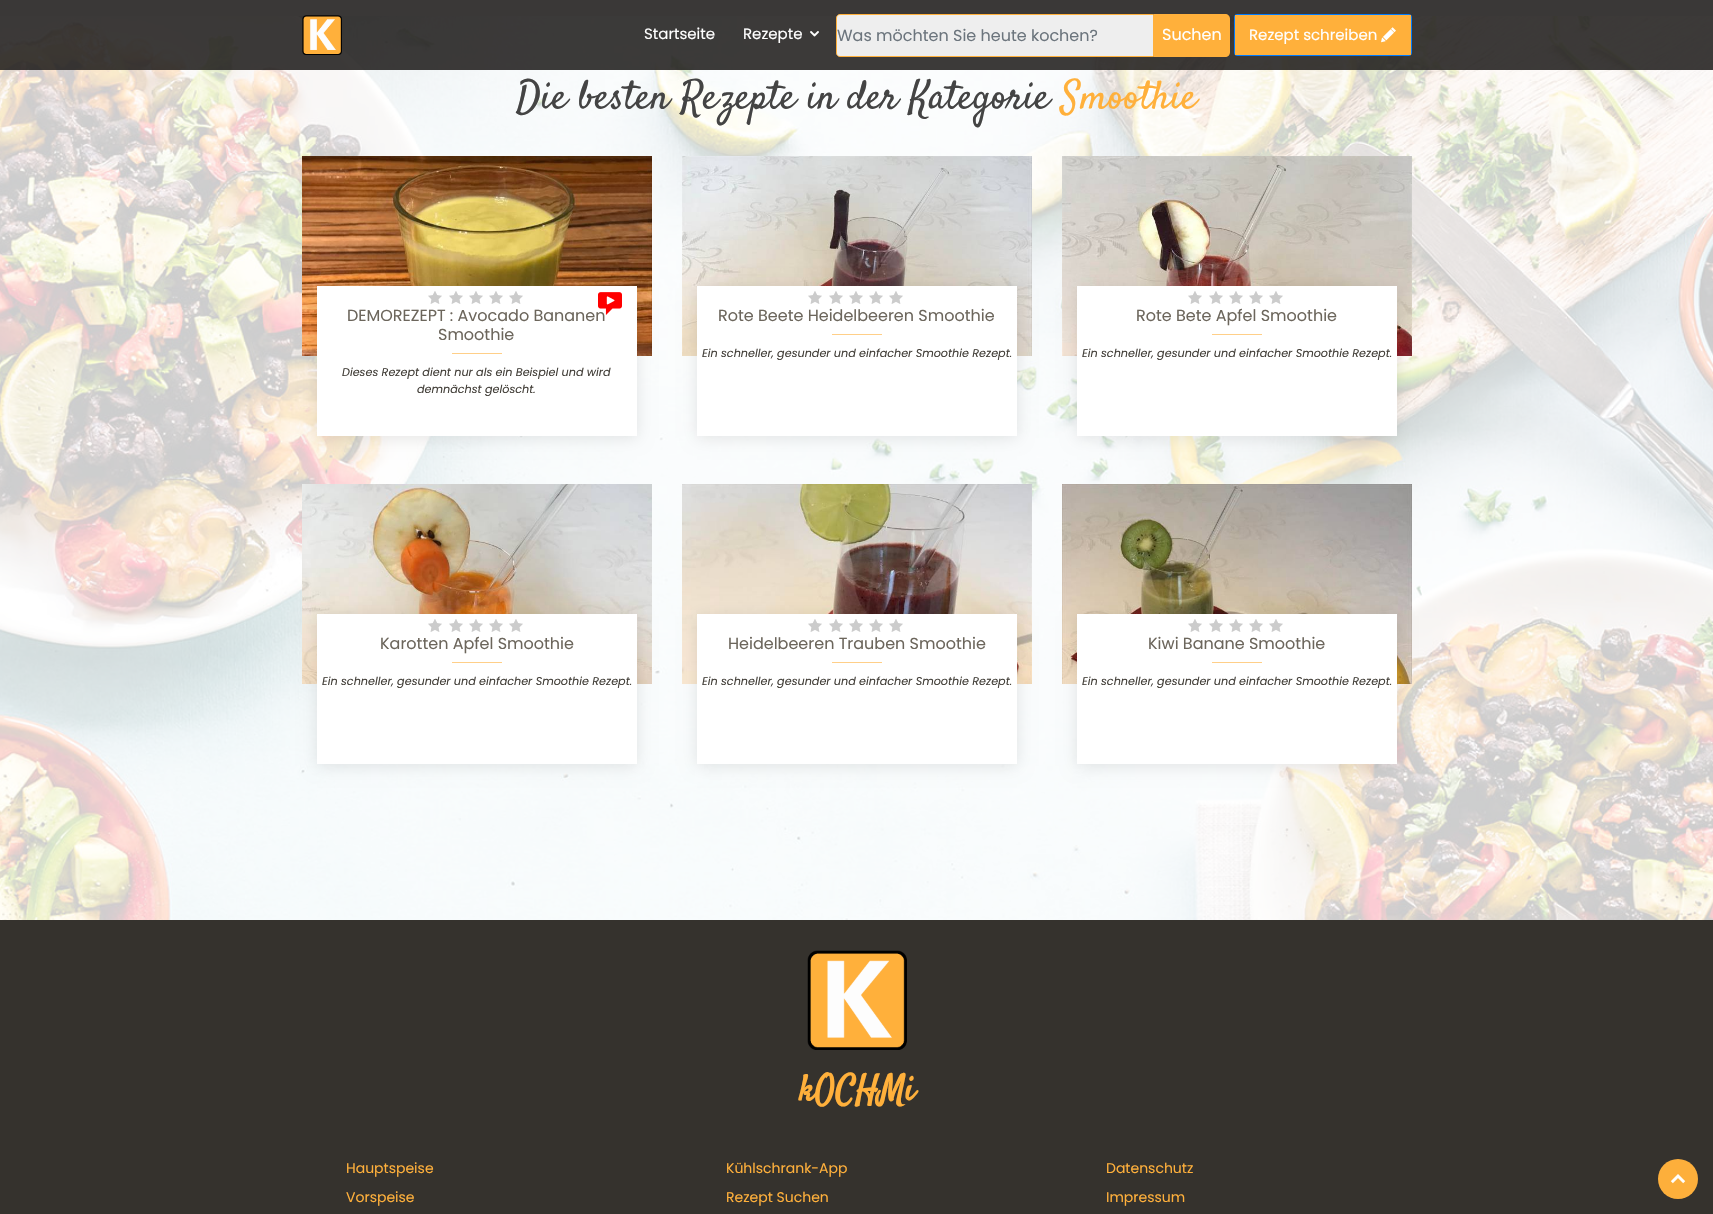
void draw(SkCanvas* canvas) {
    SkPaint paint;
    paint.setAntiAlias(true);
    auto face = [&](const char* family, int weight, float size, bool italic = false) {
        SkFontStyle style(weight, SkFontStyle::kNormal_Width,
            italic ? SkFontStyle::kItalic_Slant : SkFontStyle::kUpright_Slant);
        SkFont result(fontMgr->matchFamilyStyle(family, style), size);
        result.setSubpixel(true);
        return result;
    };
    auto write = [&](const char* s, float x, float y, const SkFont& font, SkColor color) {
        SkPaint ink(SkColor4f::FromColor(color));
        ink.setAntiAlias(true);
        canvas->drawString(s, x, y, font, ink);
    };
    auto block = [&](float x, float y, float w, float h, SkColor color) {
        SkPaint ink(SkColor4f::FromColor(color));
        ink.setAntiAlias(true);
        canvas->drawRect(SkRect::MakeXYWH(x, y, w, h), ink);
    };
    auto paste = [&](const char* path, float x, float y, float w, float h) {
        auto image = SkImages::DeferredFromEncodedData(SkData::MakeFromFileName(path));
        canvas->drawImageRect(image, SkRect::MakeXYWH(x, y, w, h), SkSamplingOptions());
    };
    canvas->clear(SkColorSetRGB(242, 241, 239));
    paste("pic4.png", 0, 16, 1713, 904);
    block(0, 0, 1713, 70, SkColorSetARGB(217, 26, 24, 22));
    paste("pic1.png", 302, 15, 40, 40);
    auto kFont1 = face("Poppins", 400, 15);
    write("Startseite", 644, 39, kFont1, SK_ColorWHITE);
    write("Rezepte", 743, 39, kFont1, SK_ColorWHITE);
    paste("pic2.png", 810, 31, 9, 6);
    paint.setColor(SkColorSetRGB(238, 238, 238));
    canvas->drawPath(SkPathBuilder().moveTo(840, 14.5f).lineTo(1153.5f, 14.5f).lineTo(1153.5f, 56.5f).lineTo(840, 56.5f).cubicTo(838, 56.5f, 836.5f, 55, 836.5f, 53).lineTo(836.5f, 18).cubicTo(836.5f, 16, 838, 14.5f, 840, 14.5f).close().detach(), paint);
    paint.setStyle(SkPaint::kStroke_Style);
    paint.setStrokeWidth(1);
    paint.setColor(SkColorSetRGB(255, 176, 59));
    canvas->drawPath(SkPathBuilder().moveTo(840, 14.5f).lineTo(1153.5f, 14.5f).lineTo(1153.5f, 56.5f).lineTo(840, 56.5f).cubicTo(838, 56.5f, 836.5f, 55, 836.5f, 53).lineTo(836.5f, 18).cubicTo(836.5f, 16, 838, 14.5f, 840, 14.5f).close().detach(), paint);
    auto kFont2 = face("Poppins", 400, 16);
    write("Was möchten Sie heute kochen?", 837, 41, kFont2, SkColorSetRGB(108, 117, 125));
    paint.setStyle(SkPaint::kFill_Style);
    canvas->drawPath(SkPathBuilder().moveTo(1154, 14).lineTo(1225, 14).cubicTo(1228, 14, 1230, 16, 1230, 19).lineTo(1230, 52).cubicTo(1230, 55, 1228, 57, 1225, 57).lineTo(1154, 57).close().detach(), paint);
    write("Suchen", 1162, 40, kFont2, SK_ColorWHITE);
    paint.setStyle(SkPaint::kStroke_Style);
    paint.setColor(SkColorSetRGB(0, 123, 255));
    canvas->drawRoundRect(SkRect::MakeXYWH(1234.5f, 14.5f, 177, 41), 2.5f, 2.5f, paint);
    block(1235, 15, 176, 40, SkColorSetRGB(255, 176, 59));
    write("Rezept schreiben", 1249, 40, kFont1, SK_ColorWHITE);
    paste("pic3.png", 1381, 27, 15, 16);
    auto kFont3 = face("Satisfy", 400, 40);
    write("Die besten Rezepte in der Kategorie", 516, 108, kFont3, SkColorSetRGB(68, 68, 68));
    write("Smoothie", 1061, 108, kFont3, SkColorSetRGB(255, 176, 59));
    paste("pic5.png", 302, 156, 350, 200);
    paint.setStyle(SkPaint::kFill_Style);
    paint.setColor(SkColorSetARGB(26, 0, 0, 0));
    paint.setMaskFilter(SkMaskFilter::MakeBlur(kNormal_SkBlurStyle, 7.5f));
    canvas->drawRect(SkRect::MakeXYWH(317, 288, 320, 150), paint);
    paint.setMaskFilter(nullptr);
    block(317, 286, 320, 150, SK_ColorWHITE);
    paste("pic6.png", 428, 291, 14, 13);
    paste("pic6.png", 449, 291, 14, 13);
    paste("pic6.png", 469, 291, 14, 13);
    paste("pic6.png", 489, 291, 14, 13);
    paste("pic6.png", 509, 291, 14, 13);
    write("DEMOREZEPT : Avocado Bananen", 347, 321, kFont2, SkColorSetRGB(108, 102, 92));
    paste("pic7.png", 598, 292, 24, 23);
    write("Smoothie", 438, 340, kFont2, SkColorSetRGB(108, 102, 92));
    block(452, 353, 50, 1, SkColorSetRGB(255, 207, 136));
    auto kFont4 = face("Poppins", 400, 11.2f, true);
    write("Dieses Rezept dient nur als ein Beispiel und wird", 342, 376, kFont4, SkColorSetRGB(67, 63, 57));
    write("demnächst gelöscht.", 417, 393, kFont4, SkColorSetRGB(67, 63, 57));
    paste("pic8.png", 682, 156, 350, 200);
    paint.setMaskFilter(SkMaskFilter::MakeBlur(kNormal_SkBlurStyle, 7.5f));
    canvas->drawRect(SkRect::MakeXYWH(697, 288, 320, 150), paint);
    paint.setMaskFilter(nullptr);
    block(697, 286, 320, 150, SK_ColorWHITE);
    paste("pic6.png", 808, 291, 14, 13);
    paste("pic6.png", 829, 291, 14, 13);
    paste("pic6.png", 849, 291, 14, 13);
    paste("pic6.png", 869, 291, 14, 13);
    paste("pic6.png", 889, 291, 14, 13);
    write("Rote Beete Heidelbeeren Smoothie", 718, 321, kFont2, SkColorSetRGB(108, 102, 92));
    block(832, 334, 50, 1, SkColorSetRGB(255, 207, 136));
    write("Ein schneller, gesunder und einfacher Smoothie Rezept.", 702, 357, kFont4, SkColorSetRGB(67, 63, 57));
    paste("pic9.png", 1062, 156, 350, 200);
    paint.setMaskFilter(SkMaskFilter::MakeBlur(kNormal_SkBlurStyle, 7.5f));
    canvas->drawRect(SkRect::MakeXYWH(1077, 288, 320, 150), paint);
    paint.setMaskFilter(nullptr);
    block(1077, 286, 320, 150, SK_ColorWHITE);
    paste("pic6.png", 1188, 291, 14, 13);
    paste("pic6.png", 1209, 291, 14, 13);
    paste("pic6.png", 1229, 291, 14, 13);
    paste("pic6.png", 1249, 291, 14, 13);
    paste("pic6.png", 1269, 291, 14, 13);
    write("Rote Bete Apfel Smoothie", 1136, 321, kFont2, SkColorSetRGB(108, 102, 92));
    block(1212, 334, 50, 1, SkColorSetRGB(255, 207, 136));
    write("Ein schneller, gesunder und einfacher Smoothie Rezept.", 1082, 357, kFont4, SkColorSetRGB(67, 63, 57));
    paste("pic10.png", 302, 484, 350, 200);
    paint.setMaskFilter(SkMaskFilter::MakeBlur(kNormal_SkBlurStyle, 7.5f));
    canvas->drawRect(SkRect::MakeXYWH(317, 616, 320, 150), paint);
    paint.setMaskFilter(nullptr);
    block(317, 614, 320, 150, SK_ColorWHITE);
    paste("pic6.png", 428, 619, 14, 13);
    paste("pic6.png", 449, 619, 14, 13);
    paste("pic6.png", 469, 619, 14, 13);
    paste("pic6.png", 489, 619, 14, 13);
    paste("pic6.png", 509, 619, 14, 13);
    write("Karotten Apfel Smoothie", 380, 649, kFont2, SkColorSetRGB(108, 102, 92));
    block(452, 662, 50, 1, SkColorSetRGB(255, 207, 136));
    write("Ein schneller, gesunder und einfacher Smoothie Rezept.", 322, 685, kFont4, SkColorSetRGB(67, 63, 57));
    paste("pic11.png", 682, 484, 350, 200);
    paint.setMaskFilter(SkMaskFilter::MakeBlur(kNormal_SkBlurStyle, 7.5f));
    canvas->drawRect(SkRect::MakeXYWH(697, 616, 320, 150), paint);
    paint.setMaskFilter(nullptr);
    block(697, 614, 320, 150, SK_ColorWHITE);
    paste("pic6.png", 808, 619, 14, 13);
    paste("pic6.png", 829, 619, 14, 13);
    paste("pic6.png", 849, 619, 14, 13);
    paste("pic6.png", 869, 619, 14, 13);
    paste("pic6.png", 889, 619, 14, 13);
    write("Heidelbeeren Trauben Smoothie", 728, 649, kFont2, SkColorSetRGB(108, 102, 92));
    block(832, 662, 50, 1, SkColorSetRGB(255, 207, 136));
    write("Ein schneller, gesunder und einfacher Smoothie Rezept.", 702, 685, kFont4, SkColorSetRGB(67, 63, 57));
    paste("pic12.png", 1062, 484, 350, 200);
    paint.setMaskFilter(SkMaskFilter::MakeBlur(kNormal_SkBlurStyle, 7.5f));
    canvas->drawRect(SkRect::MakeXYWH(1077, 616, 320, 150), paint);
    paint.setMaskFilter(nullptr);
    block(1077, 614, 320, 150, SK_ColorWHITE);
    paste("pic6.png", 1188, 619, 14, 13);
    paste("pic6.png", 1209, 619, 14, 13);
    paste("pic6.png", 1229, 619, 14, 13);
    paste("pic6.png", 1249, 619, 14, 13);
    paste("pic6.png", 1269, 619, 14, 13);
    write("Kiwi Banane Smoothie", 1148, 649, kFont2, SkColorSetRGB(108, 102, 92));
    block(1212, 662, 50, 1, SkColorSetRGB(255, 207, 136));
    write("Ein schneller, gesunder und einfacher Smoothie Rezept.", 1082, 685, kFont4, SkColorSetRGB(67, 63, 57));
    block(0, 920, 1713, 294, SkColorSetRGB(53, 50, 45));
    paste("pic13.png", 807, 950, 100, 100);
    auto kFont5 = face("Satisfy", 700, 36);
    write("kOCHMi", 799, 1100, kFont5, SkColorSetRGB(255, 176, 59));
    auto kFont6 = face("Poppins", 400, 14);
    write("Hauptspeise", 346, 1173, kFont6, SkColorSetRGB(255, 176, 59));
    write("Vorspeise", 346, 1202, kFont6, SkColorSetRGB(255, 176, 59));
    write("Kühlschrank-App", 726, 1173, kFont6, SkColorSetRGB(255, 176, 59));
    write("Rezept Suchen", 726, 1202, kFont6, SkColorSetRGB(255, 176, 59));
    write("Datenschutz", 1106, 1173, kFont6, SkColorSetRGB(255, 176, 59));
    write("Impressum", 1106, 1202, kFont6, SkColorSetRGB(255, 176, 59));
    paint.setColor(SkColorSetRGB(253, 175, 59));
    canvas->drawCircle(1678, 1179, 20, paint);
    paste("pic14.png", 1670, 1174, 16, 10);
}
